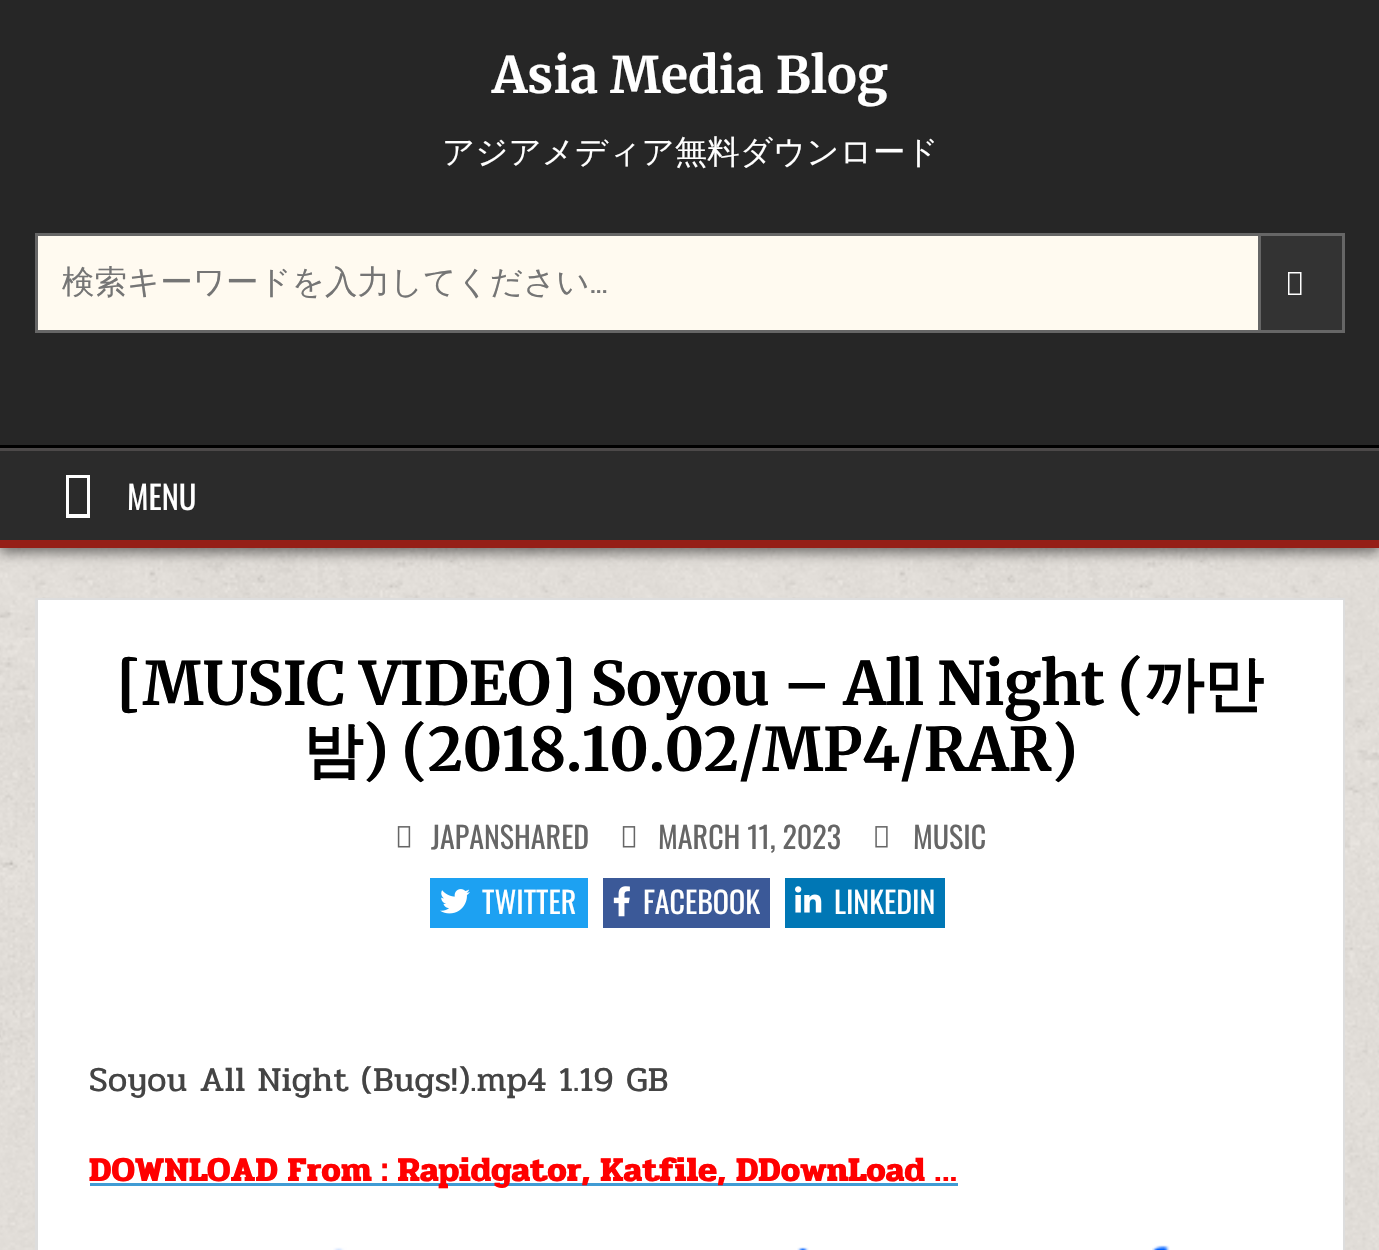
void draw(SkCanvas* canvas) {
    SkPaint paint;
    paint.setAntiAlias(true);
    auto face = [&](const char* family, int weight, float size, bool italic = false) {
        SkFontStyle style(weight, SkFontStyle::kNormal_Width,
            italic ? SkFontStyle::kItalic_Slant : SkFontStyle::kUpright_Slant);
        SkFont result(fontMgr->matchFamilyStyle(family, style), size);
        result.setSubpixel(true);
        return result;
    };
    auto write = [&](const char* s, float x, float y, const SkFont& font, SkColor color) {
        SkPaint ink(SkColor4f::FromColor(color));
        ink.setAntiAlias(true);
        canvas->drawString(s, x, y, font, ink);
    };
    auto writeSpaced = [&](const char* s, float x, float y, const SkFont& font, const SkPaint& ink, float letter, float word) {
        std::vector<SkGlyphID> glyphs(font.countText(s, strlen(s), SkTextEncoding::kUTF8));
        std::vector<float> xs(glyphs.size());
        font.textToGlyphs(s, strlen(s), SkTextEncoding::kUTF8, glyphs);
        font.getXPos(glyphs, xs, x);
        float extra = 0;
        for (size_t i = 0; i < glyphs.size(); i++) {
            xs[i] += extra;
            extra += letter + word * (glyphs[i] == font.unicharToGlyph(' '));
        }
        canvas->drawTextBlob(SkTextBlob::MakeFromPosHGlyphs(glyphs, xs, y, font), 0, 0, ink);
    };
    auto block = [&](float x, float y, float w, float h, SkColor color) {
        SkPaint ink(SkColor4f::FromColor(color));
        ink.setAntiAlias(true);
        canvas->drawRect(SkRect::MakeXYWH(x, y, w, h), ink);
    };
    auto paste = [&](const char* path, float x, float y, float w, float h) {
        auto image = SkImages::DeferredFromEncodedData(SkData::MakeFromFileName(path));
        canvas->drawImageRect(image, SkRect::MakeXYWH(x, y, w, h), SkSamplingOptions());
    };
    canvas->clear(SK_ColorWHITE);
    paste("pic1.png", 0, 548, 1379, 702);
    paint.setColor(SkColorSetARGB(128, 0, 0, 0));
    paint.setMaskFilter(SkMaskFilter::MakeBlur(kNormal_SkBlurStyle, 6));
    canvas->drawRect(SkRect::MakeXYWH(0, 453, 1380, 100), paint);
    paint.setMaskFilter(nullptr);
    block(0, 0, 1379, 445, SkColorSetRGB(38, 38, 38));
    block(0, 445, 1379, 3, SK_ColorBLACK);
    auto kFont1 = face("Merriweather", 700, 50);
    write("Asia Media Blog", 492, 93, kFont1, SK_ColorWHITE);
    auto kFont2 = face("WenQuanYi Zen Hei", 500, 32.5f);
    write("アジアメディア無料ダウンロード", 442, 163, kFont2, SK_ColorWHITE);
    block(38, 236, 1220, 94, SkColorSetRGB(255, 250, 240));
    paint.setStyle(SkPaint::kStroke_Style);
    paint.setStrokeWidth(3);
    paint.setColor(SkColorSetRGB(102, 102, 102));
    canvas->drawRect(SkRect::MakeXYWH(36.5f, 234.5f, 1307, 97), paint);
    write("検索キーワードを入力してください", 62, 293, kFont2, SkColorSetRGB(117, 117, 117));
    auto kFont3 = face("Pridi", 400, 32.5f);
    write("...", 590, 293, kFont3, SkColorSetRGB(117, 117, 117));
    paint.setStyle(SkPaint::kFill_Style);
    paint.setColor(SkColorSetRGB(51, 51, 51));
    canvas->drawRect(SkRect::MakeXYWH(1259.5f, 234.5f, 84, 97), paint);
    paint.setStyle(SkPaint::kStroke_Style);
    paint.setColor(SkColorSetRGB(102, 102, 102));
    canvas->drawRect(SkRect::MakeXYWH(1259.5f, 234.5f, 84, 97), paint);
    paint.setStyle(SkPaint::kFill_Style);
    paint.setColor(SK_ColorWHITE);
    canvas->drawPath(SkPathBuilder().moveTo(1288, 295).lineTo(1288, 272).lineTo(1301.5f, 272).lineTo(1301.5f, 295).close().moveTo(1289.5f, 293.5f).lineTo(1300, 293.5f).lineTo(1300, 273.5f).lineTo(1289.5f, 273.5f).close().detach(), paint);
    block(0, 451, 1379, 89, SkColorSetRGB(43, 43, 43));
    block(0, 448, 1379, 3, SkColorSetRGB(76, 73, 73));
    block(0, 540, 1379, 8, SkColorSetRGB(149, 31, 23));
    canvas->drawPath(SkPathBuilder().moveTo(66, 518).lineTo(66, 475).lineTo(90, 475).lineTo(90, 518).close().moveTo(69, 514).lineTo(87, 514).lineTo(87, 478).lineTo(69, 478).close().detach(), paint);
    auto kFont4 = face("Oswald", 400, 32.5f);
    write("MENU", 127, 510, kFont4, SK_ColorWHITE);
    block(41, 603, 1299, 647, SK_ColorWHITE);
    paint.setStyle(SkPaint::kStroke_Style);
    paint.setColor(SkColorSetRGB(221, 221, 221));
    canvas->drawRect(SkRect::MakeXYWH(36.5f, 599.5f, 1307, 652), paint);
    paint.setColor(SK_ColorWHITE);
    canvas->drawRect(SkRect::MakeXYWH(39.5f, 601.5f, 1302, 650), paint);
    auto kFont5 = face("Merriweather", 700, 60);
    paint.setStyle(SkPaint::kFill_Style);
    paint.setColor(SK_ColorBLACK);
    writeSpaced("[MUSIC VIDEO] Soyou – All Night (", 116, 705, kFont5, paint, -0.5f, 0);
    auto kFont6 = face("WenQuanYi Zen Hei", 700, 60);
    writeSpaced("까만", 1144, 705, kFont6, paint, -0.5f, 0);
    writeSpaced("밤", 303, 771, kFont6, paint, -0.5f, 0);
    writeSpaced(") (2018.10.02/MP4/RAR)", 362, 771, kFont5, paint, -0.5f, 0);
    paste("pic2.png", 397, 826, 14, 22);
    auto kFont7 = face("Oswald", 400, 30);
    write("JAPANSHARED", 431, 849, kFont7, SkColorSetRGB(102, 102, 102));
    paste("pic2.png", 622, 826, 14, 22);
    write("MARCH 11, 2023", 658, 849, kFont7, SkColorSetRGB(102, 102, 102));
    paste("pic3.png", 875, 826, 13, 22);
    write("MUSIC", 913, 849, kFont7, SkColorSetRGB(102, 102, 102));
    block(430, 878, 158, 50, SkColorSetRGB(29, 161, 242));
    paste("pic4.png", 440, 889, 30, 25);
    write("TWITTER", 482, 914, kFont7, SK_ColorWHITE);
    block(603, 878, 167, 50, SkColorSetRGB(59, 89, 152));
    paste("pic5.png", 613, 886, 17, 31);
    write("FACEBOOK", 643, 914, kFont7, SK_ColorWHITE);
    block(785, 878, 160, 50, SkColorSetRGB(0, 119, 181));
    paste("pic6.png", 795, 886, 27, 27);
    write("LINKEDIN", 834, 914, kFont7, SK_ColorWHITE);
    auto kFont8 = face("Pridi", 400, 35);
    write("Soyou All Night (Bugs!).mp4 1.19 GB", 89, 1091, kFont8, SkColorSetRGB(68, 68, 68));
    block(90, 1183, 868, 3, SkColorSetRGB(64, 155, 212));
    auto kFont9 = face("Pridi", 700, 35);
    write("DOWNLOAD From : Rapidgator, Katfile, DDownLoad …", 89, 1181, kFont9, SkColorSetRGB(255, 0, 0));
    paste("pic7.png", 333, 1245, 837, 5);
}
